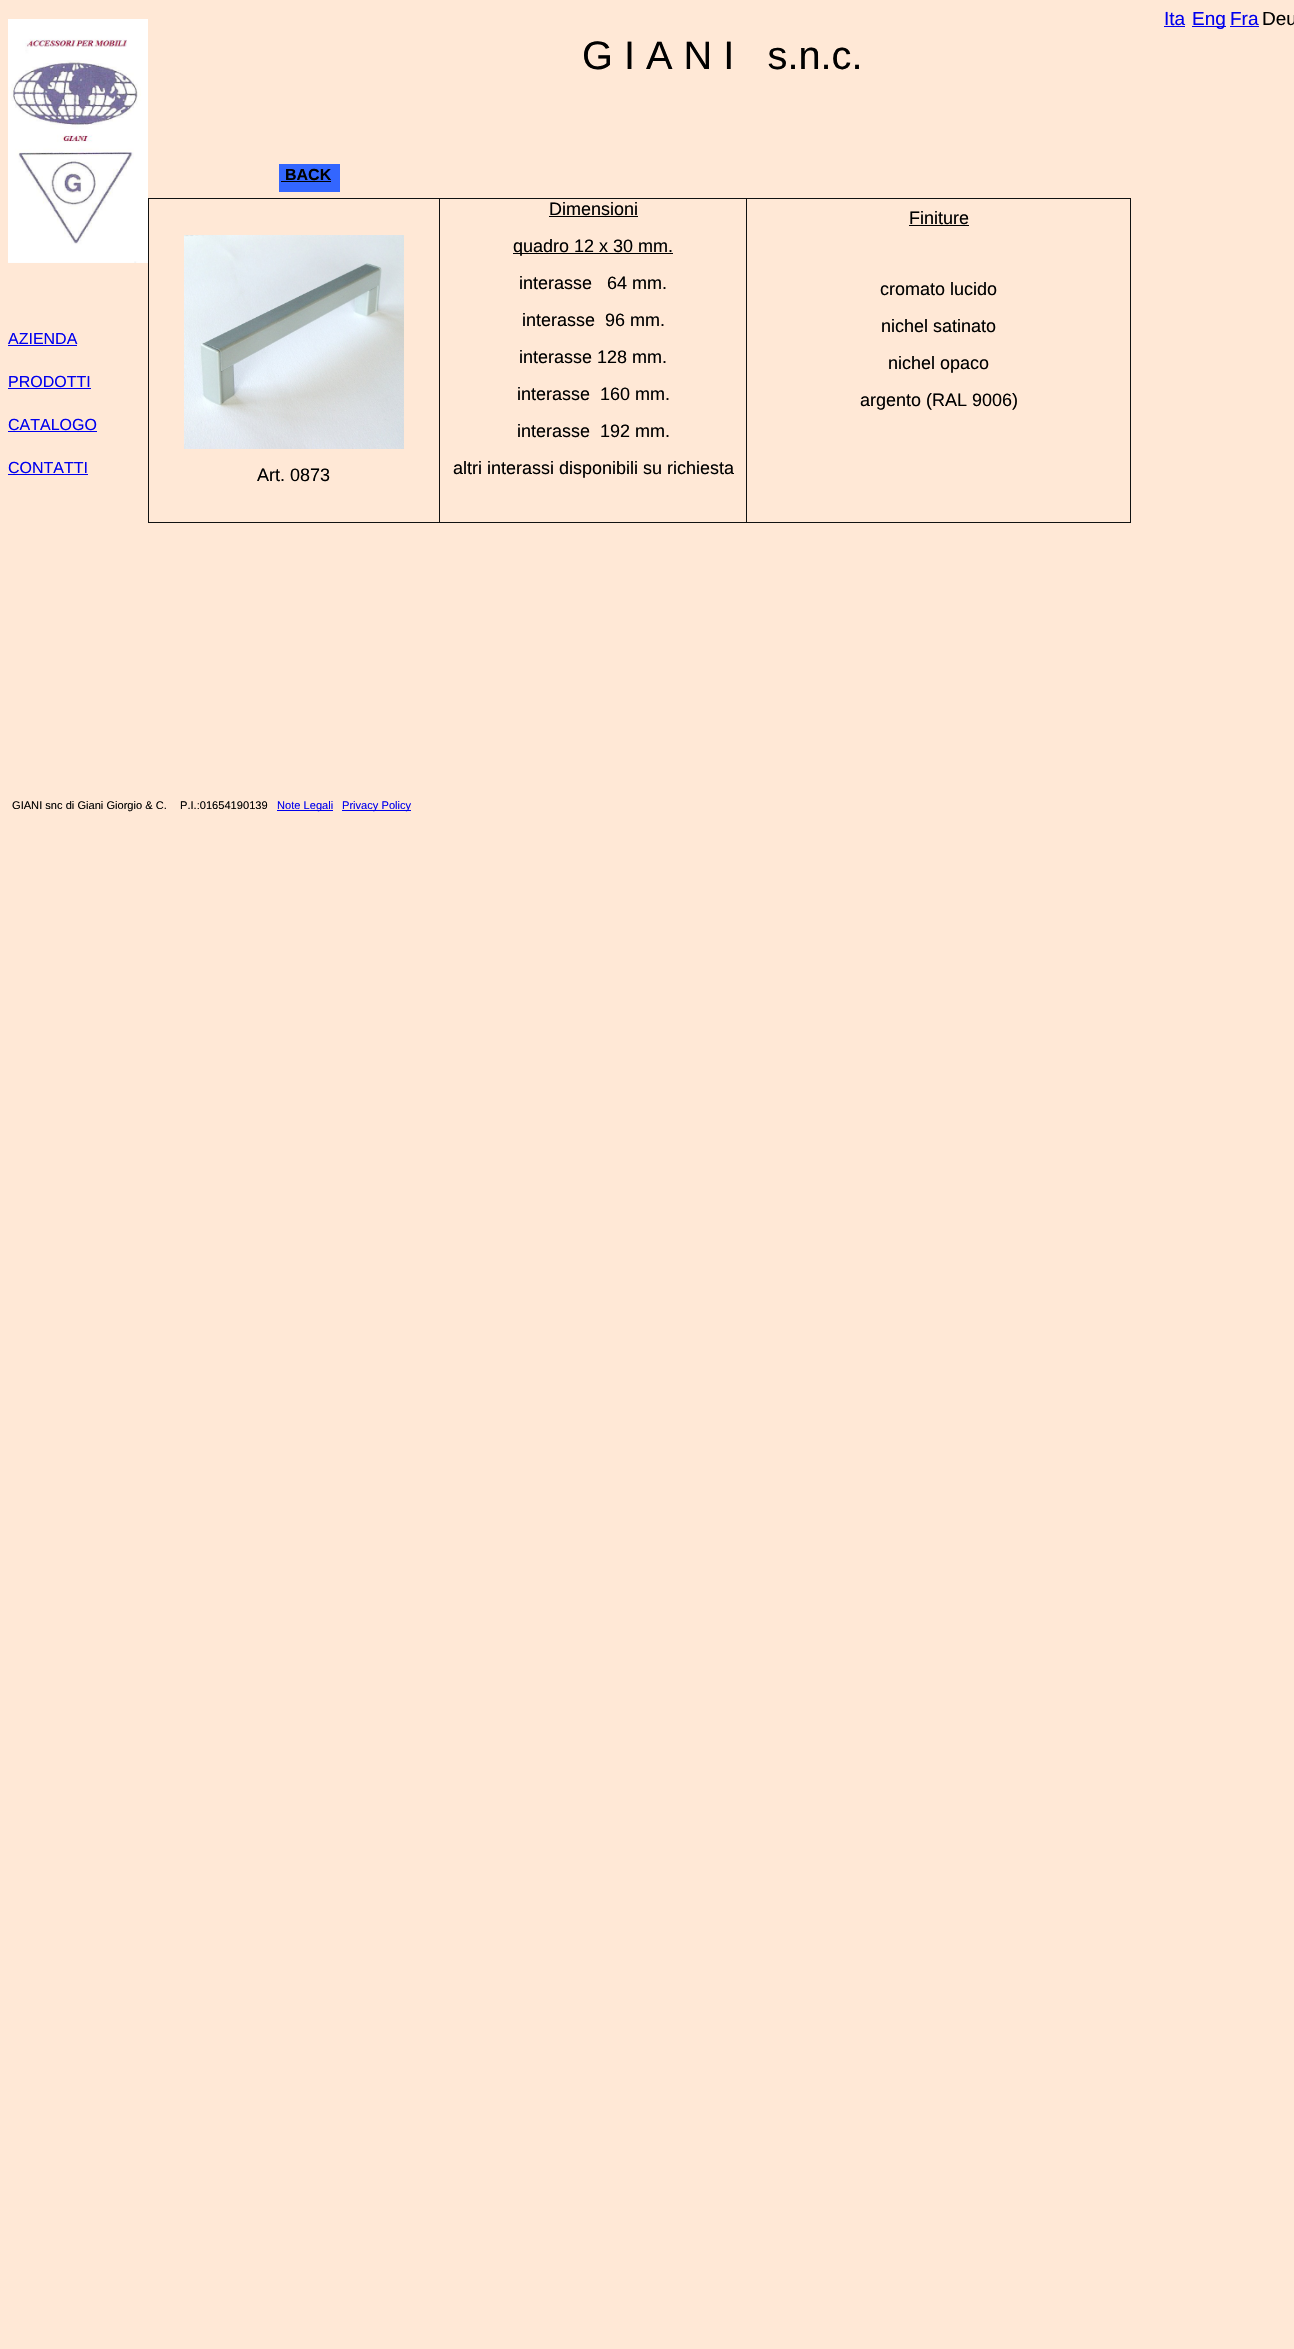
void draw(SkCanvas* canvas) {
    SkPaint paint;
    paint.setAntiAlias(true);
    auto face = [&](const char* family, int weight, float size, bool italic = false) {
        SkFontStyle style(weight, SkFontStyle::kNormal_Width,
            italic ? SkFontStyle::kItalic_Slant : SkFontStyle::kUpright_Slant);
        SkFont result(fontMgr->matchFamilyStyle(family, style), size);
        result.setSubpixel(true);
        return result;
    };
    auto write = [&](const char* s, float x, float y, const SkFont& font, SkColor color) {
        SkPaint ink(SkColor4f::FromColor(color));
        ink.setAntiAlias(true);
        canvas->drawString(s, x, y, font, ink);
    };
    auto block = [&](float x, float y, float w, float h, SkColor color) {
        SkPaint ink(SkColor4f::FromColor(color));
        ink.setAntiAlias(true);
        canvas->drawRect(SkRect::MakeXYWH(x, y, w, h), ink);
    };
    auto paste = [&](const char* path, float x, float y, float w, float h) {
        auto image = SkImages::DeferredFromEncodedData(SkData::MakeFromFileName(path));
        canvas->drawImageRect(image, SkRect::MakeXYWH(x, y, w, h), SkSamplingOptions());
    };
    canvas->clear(SkColorSetRGB(255, 232, 214));
    auto kFont1 = face("Liberation Sans", 400, 16);
    write("AZIENDA", 8, 344, kFont1, SkColorSetRGB(0, 0, 238));
    block(8, 345, 69, 1, SkColorSetRGB(0, 0, 238));
    paste("pic1.png", 8, 19, 140, 244);
    auto kFont2 = face("Liberation Sans", 400, 19);
    write("Ita", 1164, 25, kFont2, SkColorSetRGB(0, 0, 238));
    block(1164, 26, 21, 1, SkColorSetRGB(0, 0, 238));
    block(1192, 26, 34, 1, SkColorSetRGB(0, 0, 238));
    write("Eng", 1192, 25, kFont2, SkColorSetRGB(0, 0, 238));
    write("Fra", 1230, 25, kFont2, SkColorSetRGB(0, 0, 238));
    block(1230, 26, 29, 1, SkColorSetRGB(0, 0, 238));
    write("Deu", 1262, 25, kFont2, SK_ColorBLACK);
    auto kFont3 = face("Liberation Sans", 400, 39.75f);
    write("G I A N I   s.n.c.", 582, 69, kFont3, SK_ColorBLACK);
    block(279, 164, 61, 28, SkColorSetRGB(51, 102, 255));
    auto kFont4 = face("Liberation Sans", 700, 16);
    write("BACK", 285, 180, kFont4, SK_ColorBLACK);
    block(281, 181, 50, 1, SK_ColorBLACK);
    block(148, 198, 983, 1, SkColorSetRGB(17, 17, 17));
    block(1130, 198, 1, 325, SkColorSetRGB(17, 17, 17));
    block(148, 522, 983, 1, SkColorSetRGB(17, 17, 17));
    block(148, 198, 1, 325, SkColorSetRGB(17, 17, 17));
    block(439, 198, 1, 325, SkColorSetRGB(17, 17, 17));
    auto kFont5 = face("Liberation Sans", 400, 18);
    write("Dimensioni", 549, 215, kFont5, SK_ColorBLACK);
    block(549, 216, 89, 1, SK_ColorBLACK);
    block(513, 253, 160, 1, SK_ColorBLACK);
    write("quadro 12 x 30 mm.", 513, 252, kFont5, SK_ColorBLACK);
    write("interasse   64 mm.", 519, 289, kFont5, SK_ColorBLACK);
    write("interasse  96 mm.", 522, 326, kFont5, SK_ColorBLACK);
    write("interasse 128 mm.", 519, 363, kFont5, SK_ColorBLACK);
    write("interasse  160 mm.", 517, 400, kFont5, SK_ColorBLACK);
    write("interasse  192 mm.", 517, 437, kFont5, SK_ColorBLACK);
    write("altri interassi disponibili su richiesta", 453, 474, kFont5, SK_ColorBLACK);
    block(746, 198, 1, 325, SkColorSetRGB(17, 17, 17));
    write("Finiture", 909, 224, kFont5, SK_ColorBLACK);
    block(909, 225, 60, 1, SK_ColorBLACK);
    write("cromato lucido", 880, 295, kFont5, SK_ColorBLACK);
    write("nichel satinato", 881, 332, kFont5, SK_ColorBLACK);
    write("nichel opaco", 888, 369, kFont5, SK_ColorBLACK);
    write("argento (RAL 9006)", 860, 406, kFont5, SK_ColorBLACK);
    paste("pic2.png", 184, 235, 220, 214);
    write("Art. 0873", 257, 481, kFont5, SK_ColorBLACK);
    write("PRODOTTI", 8, 387, kFont1, SkColorSetRGB(0, 0, 238));
    block(8, 388, 83, 1, SkColorSetRGB(0, 0, 238));
    write("CATALOGO", 8, 430, kFont1, SkColorSetRGB(0, 0, 238));
    block(8, 431, 89, 1, SkColorSetRGB(0, 0, 238));
    write("CONTATTI", 8, 473, kFont1, SkColorSetRGB(0, 0, 238));
    block(8, 474, 80, 1, SkColorSetRGB(0, 0, 238));
    auto kFont6 = face("Liberation Sans", 400, 11.1f);
    write("GIANI snc di Giani Giorgio & C.", 12, 809, kFont6, SK_ColorBLACK);
    write("P.I.:01654190139", 180, 809, kFont6, SK_ColorBLACK);
    block(277, 810, 56, 1, SkColorSetRGB(0, 0, 238));
    write("Note Legali", 277, 809, kFont6, SkColorSetRGB(0, 0, 238));
    block(342, 810, 69, 1, SkColorSetRGB(0, 0, 238));
    write("Privacy Policy", 342, 809, kFont6, SkColorSetRGB(0, 0, 238));
}
